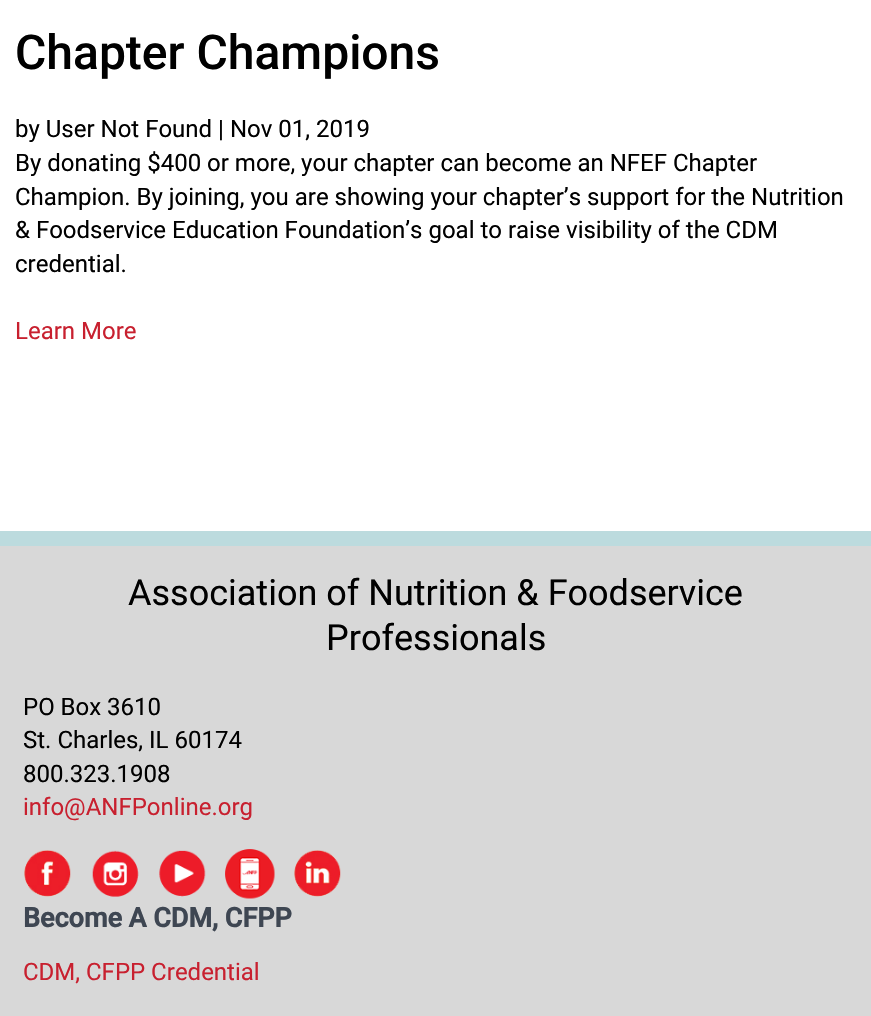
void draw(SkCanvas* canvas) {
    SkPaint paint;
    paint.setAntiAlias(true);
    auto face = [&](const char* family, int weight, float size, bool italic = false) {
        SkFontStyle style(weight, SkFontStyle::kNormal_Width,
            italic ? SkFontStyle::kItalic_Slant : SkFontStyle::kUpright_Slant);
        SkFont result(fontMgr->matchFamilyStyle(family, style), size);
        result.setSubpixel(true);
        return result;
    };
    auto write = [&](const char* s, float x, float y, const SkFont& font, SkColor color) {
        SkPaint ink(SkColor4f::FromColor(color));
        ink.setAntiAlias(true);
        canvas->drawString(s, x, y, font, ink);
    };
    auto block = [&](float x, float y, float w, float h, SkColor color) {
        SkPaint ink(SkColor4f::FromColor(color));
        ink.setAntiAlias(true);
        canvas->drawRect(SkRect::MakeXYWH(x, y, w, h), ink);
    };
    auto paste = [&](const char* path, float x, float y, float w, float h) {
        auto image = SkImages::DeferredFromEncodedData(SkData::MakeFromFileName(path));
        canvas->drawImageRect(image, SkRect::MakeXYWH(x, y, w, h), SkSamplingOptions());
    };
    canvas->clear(SK_ColorWHITE);
    auto kFont1 = face("Roboto", 500, 48);
    write("Chapter Champions", 15, 69, kFont1, SK_ColorBLACK);
    auto kFont2 = face("Roboto", 400, 24);
    write("by User Not Found | Nov 01, 2019", 15, 137, kFont2, SK_ColorBLACK);
    write("By donating $400 or more, your chapter can become an NFEF Chapter", 15, 171, kFont2, SK_ColorBLACK);
    write("Champion. By joining, you are showing your chapter’s support for the Nutrition", 15, 205, kFont2, SK_ColorBLACK);
    write("& Foodservice Education Foundation’s goal to raise visibility of the CDM", 15, 238, kFont2, SK_ColorBLACK);
    write("credential.", 15, 272, kFont2, SK_ColorBLACK);
    write("Learn More", 15, 339, kFont2, SkColorSetRGB(200, 32, 47));
    block(0, 546, 871, 470, SkColorSetRGB(216, 216, 216));
    block(0, 531, 871, 15, SkColorSetRGB(188, 219, 222));
    auto kFont3 = face("Roboto", 400, 36);
    write("Association of Nutrition & Foodservice", 128, 605, kFont3, SK_ColorBLACK);
    write("Professionals", 326, 650, kFont3, SK_ColorBLACK);
    write("PO Box 3610", 23, 715, kFont2, SK_ColorBLACK);
    write("St. Charles, IL 60174", 23, 748, kFont2, SK_ColorBLACK);
    write("800.323.1908", 23, 782, kFont2, SK_ColorBLACK);
    write("info@ANFPonline.org", 23, 815, kFont2, SkColorSetRGB(200, 32, 47));
    paste("pic1.png", 24, 850, 47, 47);
    paste("pic2.png", 92, 850, 47, 47);
    paste("pic3.png", 159, 850, 47, 47);
    paste("pic4.png", 225, 849, 50, 50);
    paste("pic5.png", 294, 850, 47, 47);
    auto kFont4 = face("Roboto", 700, 27);
    write("Become A CDM, CFPP", 23, 927, kFont4, SkColorSetRGB(62, 70, 82));
    write("CDM, CFPP Credential", 23, 980, kFont2, SkColorSetRGB(200, 32, 47));
}
